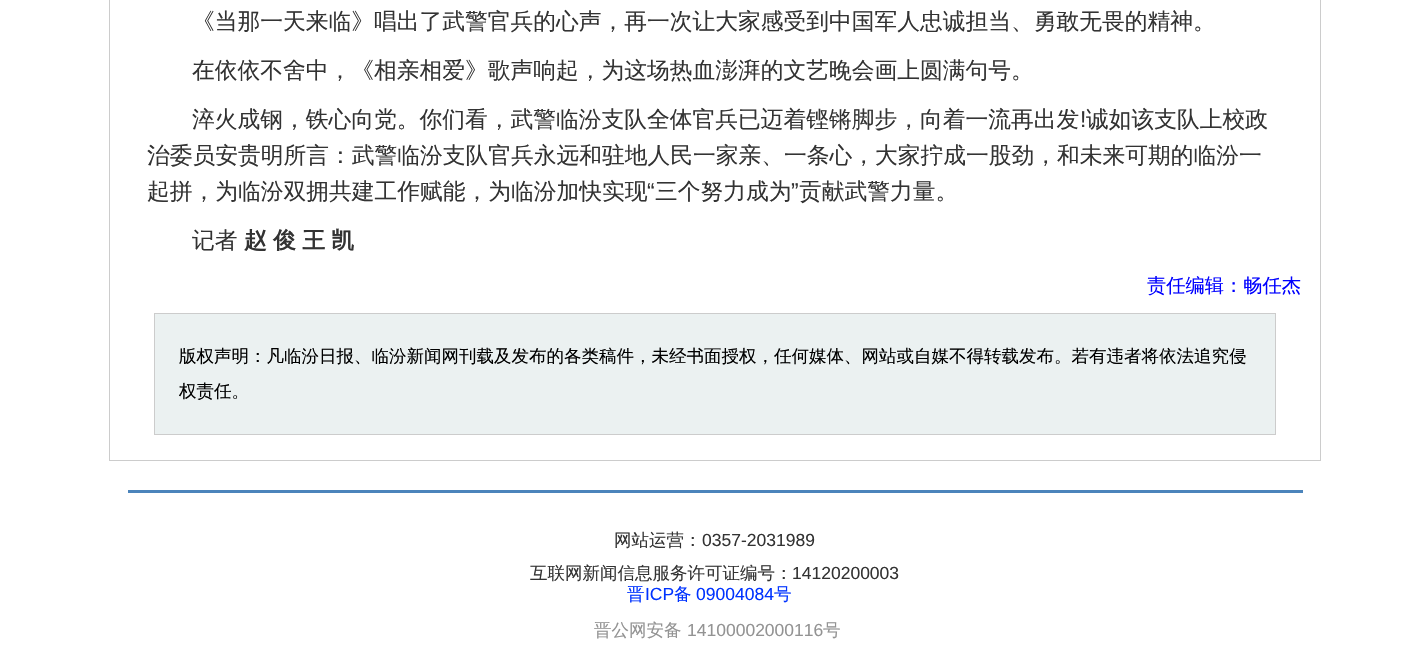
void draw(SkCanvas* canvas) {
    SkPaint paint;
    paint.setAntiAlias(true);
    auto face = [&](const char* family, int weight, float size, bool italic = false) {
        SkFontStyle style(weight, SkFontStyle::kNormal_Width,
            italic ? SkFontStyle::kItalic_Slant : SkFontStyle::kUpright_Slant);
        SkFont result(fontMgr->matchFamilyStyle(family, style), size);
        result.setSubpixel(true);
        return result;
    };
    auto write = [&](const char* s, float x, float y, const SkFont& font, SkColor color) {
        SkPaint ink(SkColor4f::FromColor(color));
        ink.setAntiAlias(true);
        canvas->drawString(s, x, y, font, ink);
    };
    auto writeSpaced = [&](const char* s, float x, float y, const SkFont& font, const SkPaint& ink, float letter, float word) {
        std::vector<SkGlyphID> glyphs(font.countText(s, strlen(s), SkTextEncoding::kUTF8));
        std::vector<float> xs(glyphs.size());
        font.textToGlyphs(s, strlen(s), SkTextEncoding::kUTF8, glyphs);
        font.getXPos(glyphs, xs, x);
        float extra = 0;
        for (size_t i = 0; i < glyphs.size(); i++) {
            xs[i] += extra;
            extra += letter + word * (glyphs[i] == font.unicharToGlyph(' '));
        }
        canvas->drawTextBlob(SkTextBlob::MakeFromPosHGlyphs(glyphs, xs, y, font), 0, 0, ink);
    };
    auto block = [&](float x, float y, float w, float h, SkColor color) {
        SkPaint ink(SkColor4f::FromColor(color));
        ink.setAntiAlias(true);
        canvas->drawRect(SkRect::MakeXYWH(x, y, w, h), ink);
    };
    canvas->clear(SK_ColorWHITE);
    paint.setColor(SkColorSetRGB(204, 204, 204));
    canvas->drawPath(SkPathBuilder().moveTo(1321, -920).lineTo(1321, 461).lineTo(1320, 460).lineTo(1320, -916).close().detach(), paint);
    block(109, 460, 1212, 1, SkColorSetRGB(204, 204, 204));
    canvas->drawPath(SkPathBuilder().moveTo(109, 461).lineTo(109, -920).lineTo(110, -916).lineTo(110, 460).close().detach(), paint);
    auto kFont1 = face("WenQuanYi Zen Hei", 500, 22.75f);
    write("《当那一天来临》唱出了武警官兵的心声，再一次让大家感受到中国军人忠诚担当、勇敢无畏的精神。", 192, 29, kFont1, SkColorSetRGB(51, 51, 51));
    write("在依依不舍中，《相亲相爱》歌声响起，为这场热血澎湃的文艺晚会画上圆满句号。", 192, 78, kFont1, SkColorSetRGB(51, 51, 51));
    write("淬火成钢，铁心向党。你们看，武警临汾支队全体官兵已迈着铿锵脚步，向着一流再出发", 192, 127, kFont1, SkColorSetRGB(51, 51, 51));
    auto kFont2 = face("Liberation Sans", 400, 22.75f);
    write("!", 1080, 127, kFont2, SkColorSetRGB(51, 51, 51));
    write("诚如该支队上校政", 1086, 127, kFont1, SkColorSetRGB(51, 51, 51));
    write("治委员安贵明所言：武警临汾支队官兵永远和驻地人民一家亲、一条心，大家拧成一股劲，和未来可期的临汾一", 147, 163, kFont1, SkColorSetRGB(51, 51, 51));
    write("起拼，为临汾双拥共建工作赋能，为临汾加快实现", 147, 199, kFont1, SkColorSetRGB(51, 51, 51));
    write("“", 647, 199, kFont2, SkColorSetRGB(51, 51, 51));
    write("三个努力成为", 655, 199, kFont1, SkColorSetRGB(51, 51, 51));
    write("”", 791, 199, kFont2, SkColorSetRGB(51, 51, 51));
    write("贡献武警力量。", 799, 199, kFont1, SkColorSetRGB(51, 51, 51));
    write("记者", 192, 248, kFont1, SkColorSetRGB(51, 51, 51));
    auto kFont3 = face("WenQuanYi Zen Hei", 700, 22.75f);
    paint.setColor(SkColorSetRGB(51, 51, 51));
    writeSpaced("赵 俊 王 凯", 244, 248, kFont3, paint, 0, -0.5f);
    auto kFont4 = face("WenQuanYi Zen Hei", 500, 19.25f);
    write("责任编辑：畅任杰", 1147, 292, kFont4, SkColorSetRGB(0, 0, 255));
    paint.setColor(SkColorSetRGB(235, 241, 241));
    canvas->drawRect(SkRect::MakeXYWH(154.5f, 313.5f, 1121, 121), paint);
    paint.setStyle(SkPaint::kStroke_Style);
    paint.setStrokeWidth(1);
    paint.setColor(SkColorSetRGB(204, 204, 204));
    canvas->drawRect(SkRect::MakeXYWH(154.5f, 313.5f, 1121, 121), paint);
    auto kFont5 = face("WenQuanYi Zen Hei", 500, 17.5f);
    write("版权声明：凡临汾日报、临汾新闻网刊载及发布的各类稿件，未经书面授权，任何媒体、网站或自媒不得转载发布。若有违者将依法追究侵", 179, 362, kFont5, SK_ColorBLACK);
    write("权责任。", 179, 397, kFont5, SK_ColorBLACK);
    block(128, 490, 1175, 3, SkColorSetRGB(75, 132, 187));
    write("网站运营：", 614, 546, kFont5, SkColorSetRGB(51, 51, 51));
    auto kFont6 = face("Liberation Sans", 400, 17.5f);
    write("0357-2031989", 702, 546, kFont6, SkColorSetRGB(51, 51, 51));
    write("互联网新闻信息服务许可证编号：", 530, 579, kFont5, SkColorSetRGB(51, 51, 51));
    write("14120200003", 792, 579, kFont6, SkColorSetRGB(51, 51, 51));
    write("晋", 627, 600, kFont5, SkColorSetRGB(0, 51, 255));
    write("ICP", 645, 600, kFont6, SkColorSetRGB(0, 51, 255));
    write("备", 674, 600, kFont5, SkColorSetRGB(0, 51, 255));
    write("09004084", 696, 600, kFont6, SkColorSetRGB(0, 51, 255));
    write("号", 774, 600, kFont5, SkColorSetRGB(0, 51, 255));
    write("晋公网安备", 594, 636, kFont5, SkColorSetRGB(147, 147, 147));
    write("14100002000116", 687, 636, kFont6, SkColorSetRGB(147, 147, 147));
    write("号", 823, 636, kFont5, SkColorSetRGB(147, 147, 147));
}
